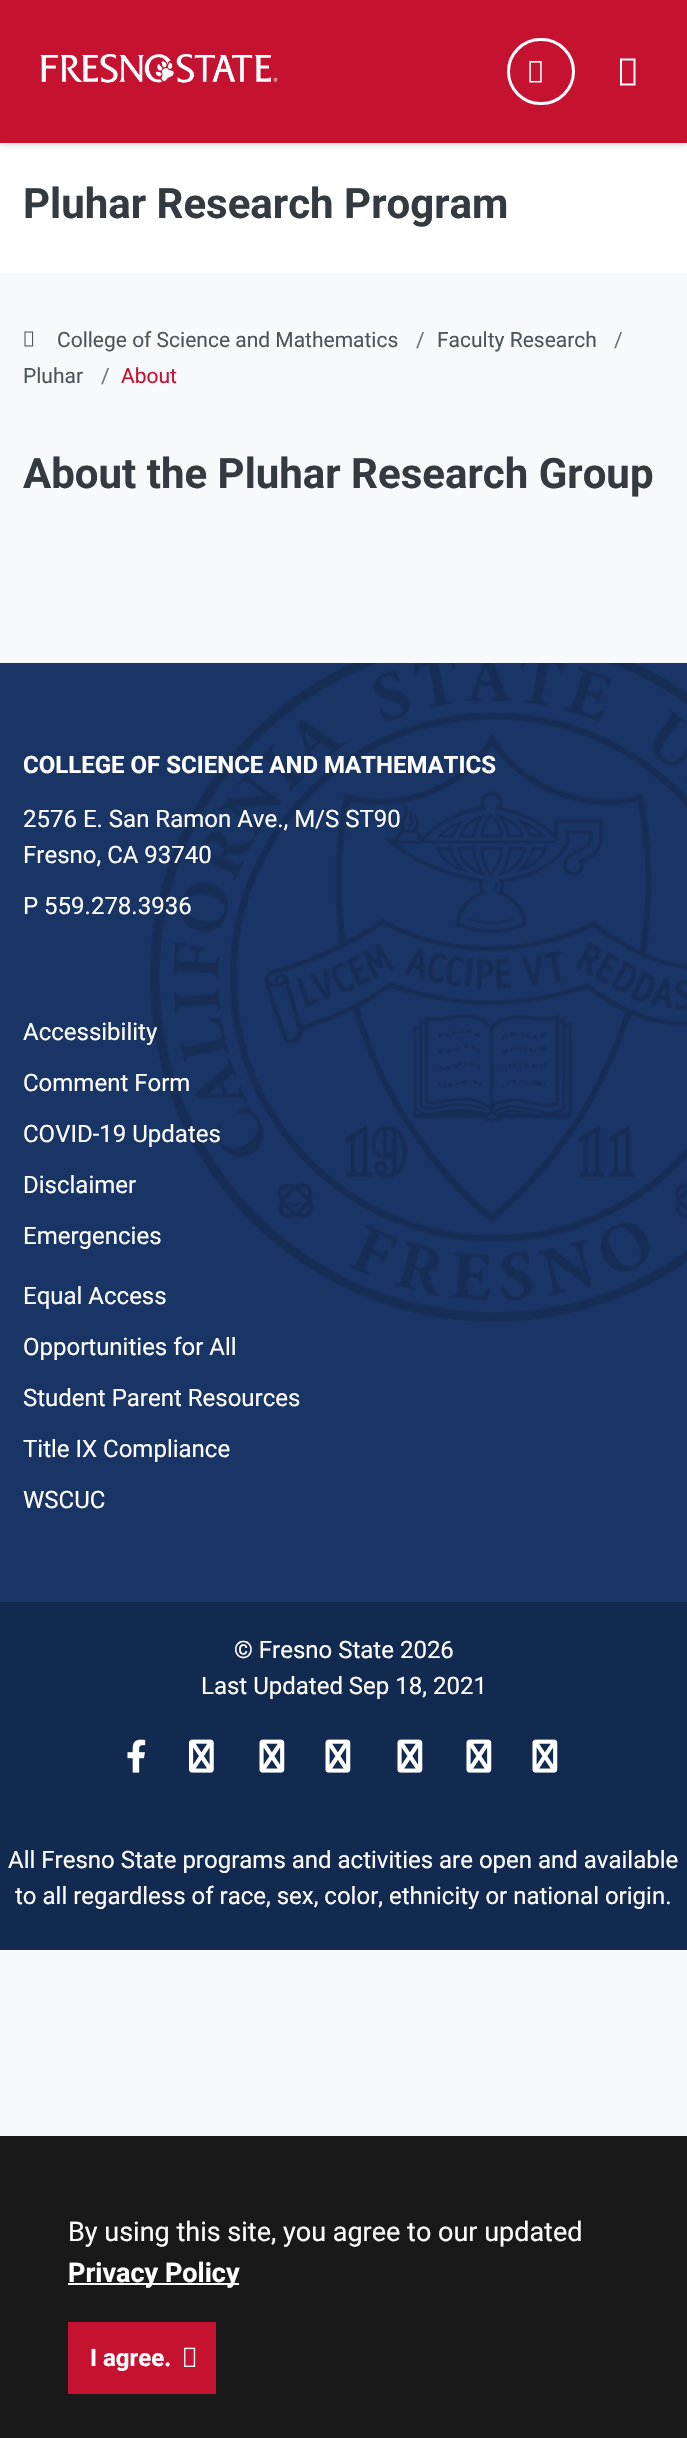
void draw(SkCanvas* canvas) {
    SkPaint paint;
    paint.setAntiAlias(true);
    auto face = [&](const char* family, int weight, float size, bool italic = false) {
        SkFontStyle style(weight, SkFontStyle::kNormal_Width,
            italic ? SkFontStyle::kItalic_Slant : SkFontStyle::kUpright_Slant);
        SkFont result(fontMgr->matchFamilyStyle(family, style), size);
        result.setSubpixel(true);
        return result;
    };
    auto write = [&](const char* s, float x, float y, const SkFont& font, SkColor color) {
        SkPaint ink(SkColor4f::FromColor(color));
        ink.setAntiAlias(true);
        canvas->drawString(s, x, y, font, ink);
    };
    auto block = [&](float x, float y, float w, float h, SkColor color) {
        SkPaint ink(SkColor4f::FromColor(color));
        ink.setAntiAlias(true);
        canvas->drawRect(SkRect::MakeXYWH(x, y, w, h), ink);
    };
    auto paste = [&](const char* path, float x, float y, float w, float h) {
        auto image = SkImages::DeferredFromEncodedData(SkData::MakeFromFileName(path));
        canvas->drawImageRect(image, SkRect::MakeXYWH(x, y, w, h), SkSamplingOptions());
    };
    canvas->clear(SkColorSetRGB(248, 249, 250));
    block(0, 143, 687, 130, SK_ColorWHITE);
    paint.setColor(SkColorSetARGB(64, 0, 0, 0));
    paint.setMaskFilter(SkMaskFilter::MakeBlur(kNormal_SkBlurStyle, 4));
    canvas->drawRect(SkRect::MakeXYWH(0, 0, 687, 143), paint);
    paint.setMaskFilter(nullptr);
    block(0, 0, 687, 143, SkColorSetRGB(196, 18, 48));
    paste("pic1.png", 40, 54, 238, 29);
    paint.setStyle(SkPaint::kStroke_Style);
    paint.setStrokeWidth(3);
    paint.setColor(SK_ColorWHITE);
    canvas->drawRoundRect(SkRect::MakeXYWH(508.5f, 39.5f, 65, 64), 32, 32, paint);
    paste("pic2.png", 529, 61, 13, 22);
    paint.setStyle(SkPaint::kFill_Style);
    canvas->drawPath(SkPathBuilder().moveTo(620, 85.5f).lineTo(620, 58.5f).lineTo(635.5f, 58.5f).lineTo(635.5f, 85.5f).close().moveTo(622, 83.5f).lineTo(633.5f, 83.5f).lineTo(633.5f, 60.5f).lineTo(622, 60.5f).close().detach(), paint);
    auto kFont1 = face("Roboto", 700, 42);
    write("Pluhar Research Program", 23, 218, kFont1, SkColorSetRGB(52, 58, 64));
    paste("pic3.png", 24, 331, 10, 16);
    auto kFont2 = face("Roboto", 400, 21);
    write("College of Science and Mathematics", 57, 347, kFont2, SkColorSetRGB(78, 85, 90));
    write("/", 416, 347, kFont2, SkColorSetRGB(108, 117, 125));
    write("Faculty Research", 437, 347, kFont2, SkColorSetRGB(78, 85, 90));
    write("/", 614, 347, kFont2, SkColorSetRGB(108, 117, 125));
    write("Pluhar", 23, 383, kFont2, SkColorSetRGB(78, 85, 90));
    write("/", 101, 383, kFont2, SkColorSetRGB(108, 117, 125));
    write("About", 121, 383, kFont2, SkColorSetRGB(196, 18, 48));
    write("About the Pluhar Research Group", 23, 488, kFont1, SkColorSetRGB(52, 58, 64));
    block(0, 663, 687, 939, SkColorSetRGB(25, 53, 101));
    paste("pic4.png", 150, 663, 537, 659);
    auto kFont3 = face("Roboto", 700, 24);
    write("COLLEGE OF SCIENCE AND MATHEMATICS", 23, 773, kFont3, SK_ColorWHITE);
    auto kFont4 = face("Roboto", 400, 24);
    write("2576 E. San Ramon Ave., M/S ST90", 23, 827, kFont4, SK_ColorWHITE);
    write("Fresno, CA 93740", 23, 863, kFont4, SK_ColorWHITE);
    write("P 559.278.3936", 23, 914, kFont4, SK_ColorWHITE);
    write("Accessibility", 23, 1040, kFont4, SK_ColorWHITE);
    write("Comment Form", 23, 1091, kFont4, SK_ColorWHITE);
    write("COVID-19 Updates", 23, 1142, kFont4, SK_ColorWHITE);
    write("Disclaimer", 23, 1193, kFont4, SK_ColorWHITE);
    write("Emergencies", 23, 1244, kFont4, SK_ColorWHITE);
    write("Equal Access", 23, 1304, kFont4, SK_ColorWHITE);
    write("Opportunities for All", 23, 1355, kFont4, SK_ColorWHITE);
    write("Student Parent Resources", 23, 1406, kFont4, SK_ColorWHITE);
    write("Title IX Compliance", 23, 1457, kFont4, SK_ColorWHITE);
    write("WSCUC", 23, 1508, kFont4, SK_ColorWHITE);
    block(0, 1602, 687, 348, SkColorSetRGB(19, 42, 80));
    write("© Fresno State 2026", 234, 1658, kFont4, SK_ColorWHITE);
    write("Last Updated Sep 18, 2021", 201, 1694, kFont4, SK_ColorWHITE);
    paste("pic5.png", 127, 1739, 19, 34);
    paste("pic6.png", 189, 1739, 25, 34);
    paste("pic7.png", 259, 1739, 26, 34);
    paste("pic7.png", 325, 1739, 26, 34);
    paste("pic7.png", 397, 1739, 26, 34);
    paste("pic7.png", 466, 1739, 26, 34);
    paste("pic7.png", 532, 1739, 26, 34);
    write("All Fresno State programs and activities are open and available", 8, 1868, kFont4, SK_ColorWHITE);
    write("to all regardless of race, sex, color, ethnicity or national origin.", 15, 1904, kFont4, SK_ColorWHITE);
    block(0, 2136, 687, 302, SkColorSetRGB(25, 25, 25));
    auto kFont5 = face("Roboto", 400, 27);
    write("By using this site, you agree to our updated", 68, 2241, kFont5, SK_ColorWHITE);
    block(68, 2283, 171, 2, SK_ColorWHITE);
    auto kFont6 = face("Roboto", 700, 27);
    write("Privacy Policy", 68, 2282, kFont6, SK_ColorWHITE);
    block(68, 2322, 148, 72, SkColorSetRGB(196, 18, 48));
    write("I agree.", 90, 2366, kFont3, SK_ColorWHITE);
    paste("pic8.png", 184, 2347, 12, 20);
}
